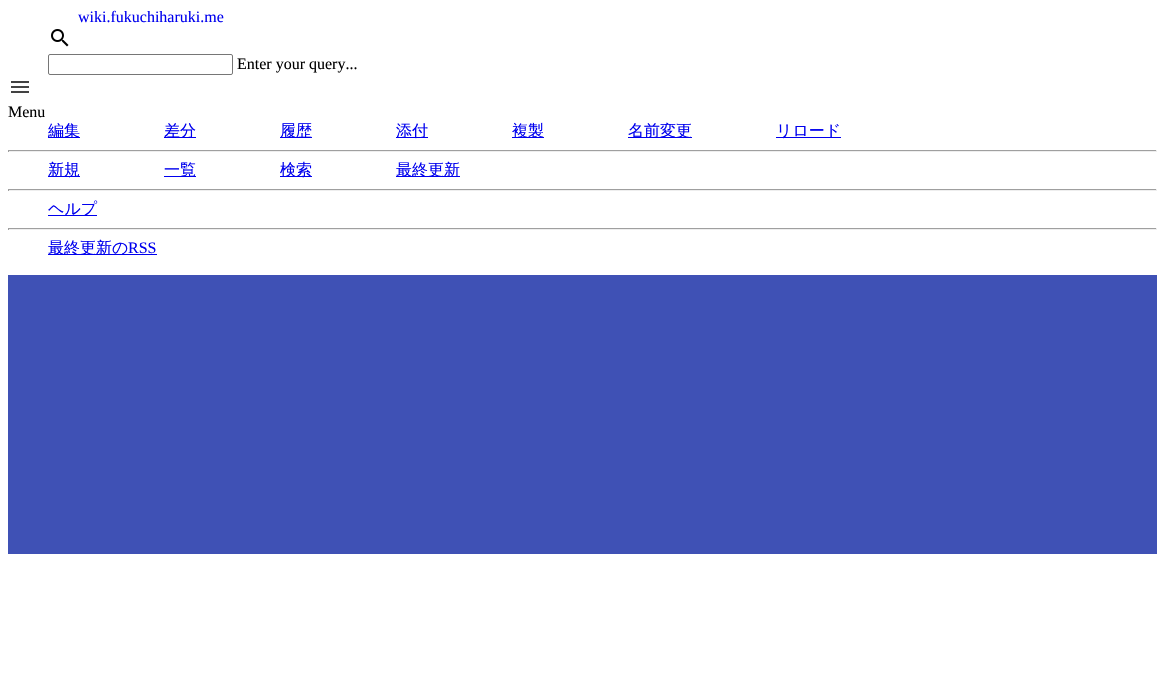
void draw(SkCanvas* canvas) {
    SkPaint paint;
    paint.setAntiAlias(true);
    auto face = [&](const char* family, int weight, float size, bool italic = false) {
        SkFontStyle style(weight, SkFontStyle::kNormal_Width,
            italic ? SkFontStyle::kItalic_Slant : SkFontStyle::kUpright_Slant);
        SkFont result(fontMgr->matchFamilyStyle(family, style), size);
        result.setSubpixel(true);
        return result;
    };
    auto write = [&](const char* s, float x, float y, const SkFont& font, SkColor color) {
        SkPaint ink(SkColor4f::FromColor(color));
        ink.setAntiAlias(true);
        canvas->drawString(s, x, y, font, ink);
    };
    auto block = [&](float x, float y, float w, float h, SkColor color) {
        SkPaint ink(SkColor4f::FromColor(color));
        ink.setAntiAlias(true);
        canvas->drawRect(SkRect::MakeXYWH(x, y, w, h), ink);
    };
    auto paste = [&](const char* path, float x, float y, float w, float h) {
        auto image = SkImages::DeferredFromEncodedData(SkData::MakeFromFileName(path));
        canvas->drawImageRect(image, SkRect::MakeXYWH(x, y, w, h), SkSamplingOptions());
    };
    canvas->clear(SK_ColorWHITE);
    auto kFont1 = face("Liberation Serif", 400, 16);
    write("wiki.fukuchiharuki.me", 78, 22, kFont1, SkColorSetRGB(0, 0, 238));
    paste("pic1.png", 51, 29, 18, 18);
    paint.setStyle(SkPaint::kStroke_Style);
    paint.setStrokeWidth(1);
    paint.setColor(SkColorSetRGB(118, 118, 118));
    canvas->drawRoundRect(SkRect::MakeXYWH(48.5f, 54.5f, 184, 20), 1.5f, 1.5f, paint);
    write("Enter your query...", 237, 69, kFont1, SK_ColorBLACK);
    paste("pic2.png", 11, 81, 18, 12);
    write("Menu", 8, 117, kFont1, SK_ColorBLACK);
    block(48, 137, 32, 1, SkColorSetRGB(0, 0, 238));
    auto kFont2 = face("WenQuanYi Zen Hei", 500, 16);
    write("編集", 48, 136, kFont2, SkColorSetRGB(0, 0, 238));
    block(164, 137, 32, 1, SkColorSetRGB(0, 0, 238));
    write("差分", 164, 136, kFont2, SkColorSetRGB(0, 0, 238));
    block(280, 137, 32, 1, SkColorSetRGB(0, 0, 238));
    write("履歴", 280, 136, kFont2, SkColorSetRGB(0, 0, 238));
    block(396, 137, 32, 1, SkColorSetRGB(0, 0, 238));
    write("添付", 396, 136, kFont2, SkColorSetRGB(0, 0, 238));
    block(512, 137, 32, 1, SkColorSetRGB(0, 0, 238));
    write("複製", 512, 136, kFont2, SkColorSetRGB(0, 0, 238));
    block(628, 137, 64, 1, SkColorSetRGB(0, 0, 238));
    write("名前変更", 628, 136, kFont2, SkColorSetRGB(0, 0, 238));
    block(776, 137, 65, 1, SkColorSetRGB(0, 0, 238));
    write("リロード", 776, 136, kFont2, SkColorSetRGB(0, 0, 238));
    block(8, 150, 1149, 1, SkColorSetRGB(159, 159, 159));
    block(1156, 150, 1, 2, SkColorSetRGB(238, 238, 238));
    block(8, 151, 1149, 1, SkColorSetRGB(238, 238, 238));
    block(8, 150, 1, 2, SkColorSetRGB(159, 159, 159));
    block(48, 176, 32, 1, SkColorSetRGB(0, 0, 238));
    write("新規", 48, 175, kFont2, SkColorSetRGB(0, 0, 238));
    block(164, 176, 32, 1, SkColorSetRGB(0, 0, 238));
    write("一覧", 164, 175, kFont2, SkColorSetRGB(0, 0, 238));
    block(280, 176, 32, 1, SkColorSetRGB(0, 0, 238));
    write("検索", 280, 175, kFont2, SkColorSetRGB(0, 0, 238));
    block(396, 176, 64, 1, SkColorSetRGB(0, 0, 238));
    write("最終更新", 396, 175, kFont2, SkColorSetRGB(0, 0, 238));
    block(8, 189, 1149, 1, SkColorSetRGB(159, 159, 159));
    block(1156, 189, 1, 2, SkColorSetRGB(238, 238, 238));
    block(8, 190, 1149, 1, SkColorSetRGB(238, 238, 238));
    block(8, 189, 1, 2, SkColorSetRGB(159, 159, 159));
    block(48, 215, 49, 1, SkColorSetRGB(0, 0, 238));
    write("ヘルプ", 48, 214, kFont2, SkColorSetRGB(0, 0, 238));
    block(8, 228, 1149, 1, SkColorSetRGB(159, 159, 159));
    block(1156, 228, 1, 2, SkColorSetRGB(238, 238, 238));
    block(8, 229, 1149, 1, SkColorSetRGB(238, 238, 238));
    block(8, 228, 1, 2, SkColorSetRGB(159, 159, 159));
    block(48, 254, 109, 1, SkColorSetRGB(0, 0, 238));
    write("最終更新の", 48, 253, kFont2, SkColorSetRGB(0, 0, 238));
    write("RSS", 128, 253, kFont1, SkColorSetRGB(0, 0, 238));
    block(8, 275, 1149, 279, SkColorSetRGB(63, 81, 181));
}
